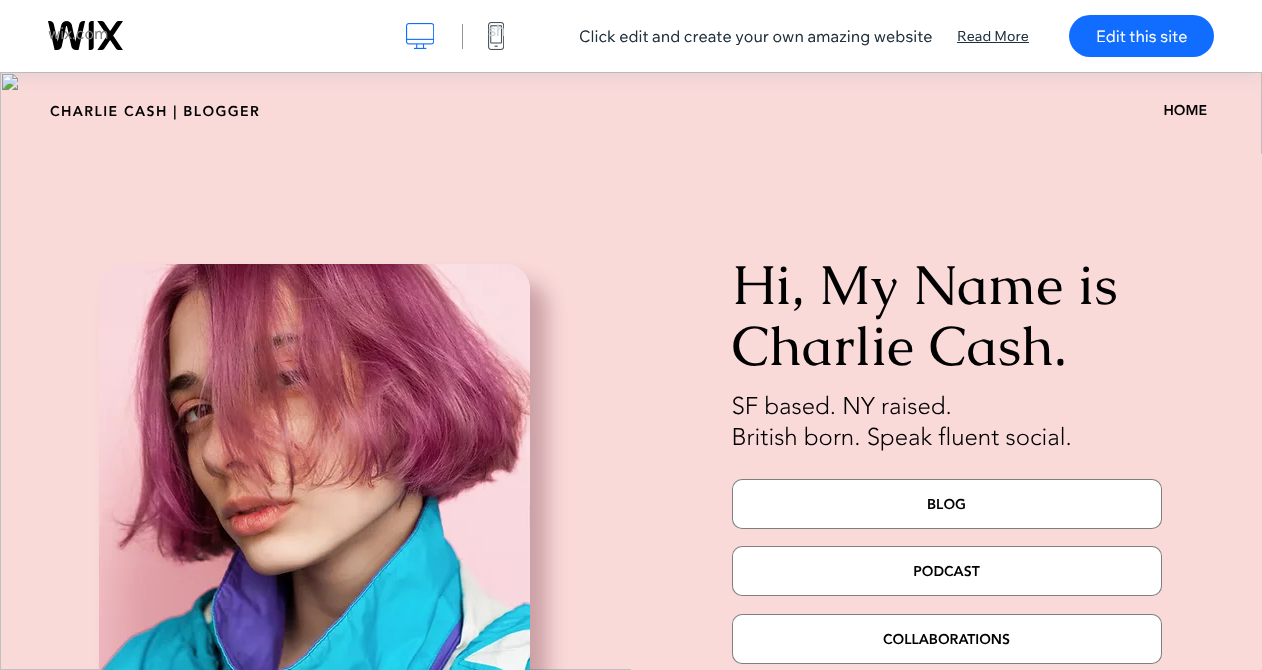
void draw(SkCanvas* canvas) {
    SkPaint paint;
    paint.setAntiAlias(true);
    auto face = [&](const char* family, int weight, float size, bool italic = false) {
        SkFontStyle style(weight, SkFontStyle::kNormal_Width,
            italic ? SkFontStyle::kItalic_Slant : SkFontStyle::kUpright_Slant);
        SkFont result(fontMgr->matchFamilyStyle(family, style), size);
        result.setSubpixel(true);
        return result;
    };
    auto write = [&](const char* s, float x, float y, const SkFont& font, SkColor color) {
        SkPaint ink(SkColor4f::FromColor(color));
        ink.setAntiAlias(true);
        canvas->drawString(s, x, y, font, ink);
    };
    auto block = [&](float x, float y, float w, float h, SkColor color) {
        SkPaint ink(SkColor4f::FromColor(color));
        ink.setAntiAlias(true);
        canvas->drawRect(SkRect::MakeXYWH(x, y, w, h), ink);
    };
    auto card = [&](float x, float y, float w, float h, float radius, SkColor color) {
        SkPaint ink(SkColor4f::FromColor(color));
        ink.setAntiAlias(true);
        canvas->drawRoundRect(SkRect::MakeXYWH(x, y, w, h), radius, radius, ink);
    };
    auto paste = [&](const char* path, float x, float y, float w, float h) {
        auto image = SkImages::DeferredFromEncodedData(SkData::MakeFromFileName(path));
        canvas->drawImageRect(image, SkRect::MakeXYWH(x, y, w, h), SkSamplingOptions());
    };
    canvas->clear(SK_ColorWHITE);
    paste("pic4.png", 0, 72, 1262, 598);
    paint.setColor(SkColorSetARGB(51, 129, 162, 182));
    paint.setMaskFilter(SkMaskFilter::MakeBlur(kNormal_SkBlurStyle, 9));
    canvas->drawRect(SkRect::MakeXYWH(0, 2, 1262, 72), paint);
    paint.setMaskFilter(nullptr);
    block(0, 0, 1262, 72, SK_ColorWHITE);
    paste("pic1.png", 48, 21, 75, 29);
    auto kFont1 = face("Wix Madefor Text", 400, 16);
    write("wix.com", 48, 39, kFont1, SkColorSetRGB(128, 128, 128));
    paste("pic2.png", 406, 23, 28, 26);
    block(462, 24, 1, 25, SkColorSetRGB(144, 152, 158));
    paste("pic3.png", 488, 22, 16, 28);
    auto kFont2 = face("Liberation Sans", 400, 16);
    write("sh", 488, 36, kFont2, SkColorSetRGB(207, 211, 213));
    write("Click edit and create your own amazing website", 579, 42, kFont1, SkColorSetRGB(32, 48, 60));
    auto kFont3 = face("Wix Madefor Text", 400, 14);
    write("Read More", 957, 41, kFont3, SkColorSetRGB(32, 48, 60));
    block(957, 42, 72, 1, SkColorSetRGB(32, 48, 60));
    card(1069, 15, 145, 42, 21, SkColorSetRGB(17, 109, 255));
    write("Edit this site", 1096, 42, kFont1, SK_ColorWHITE);
}
